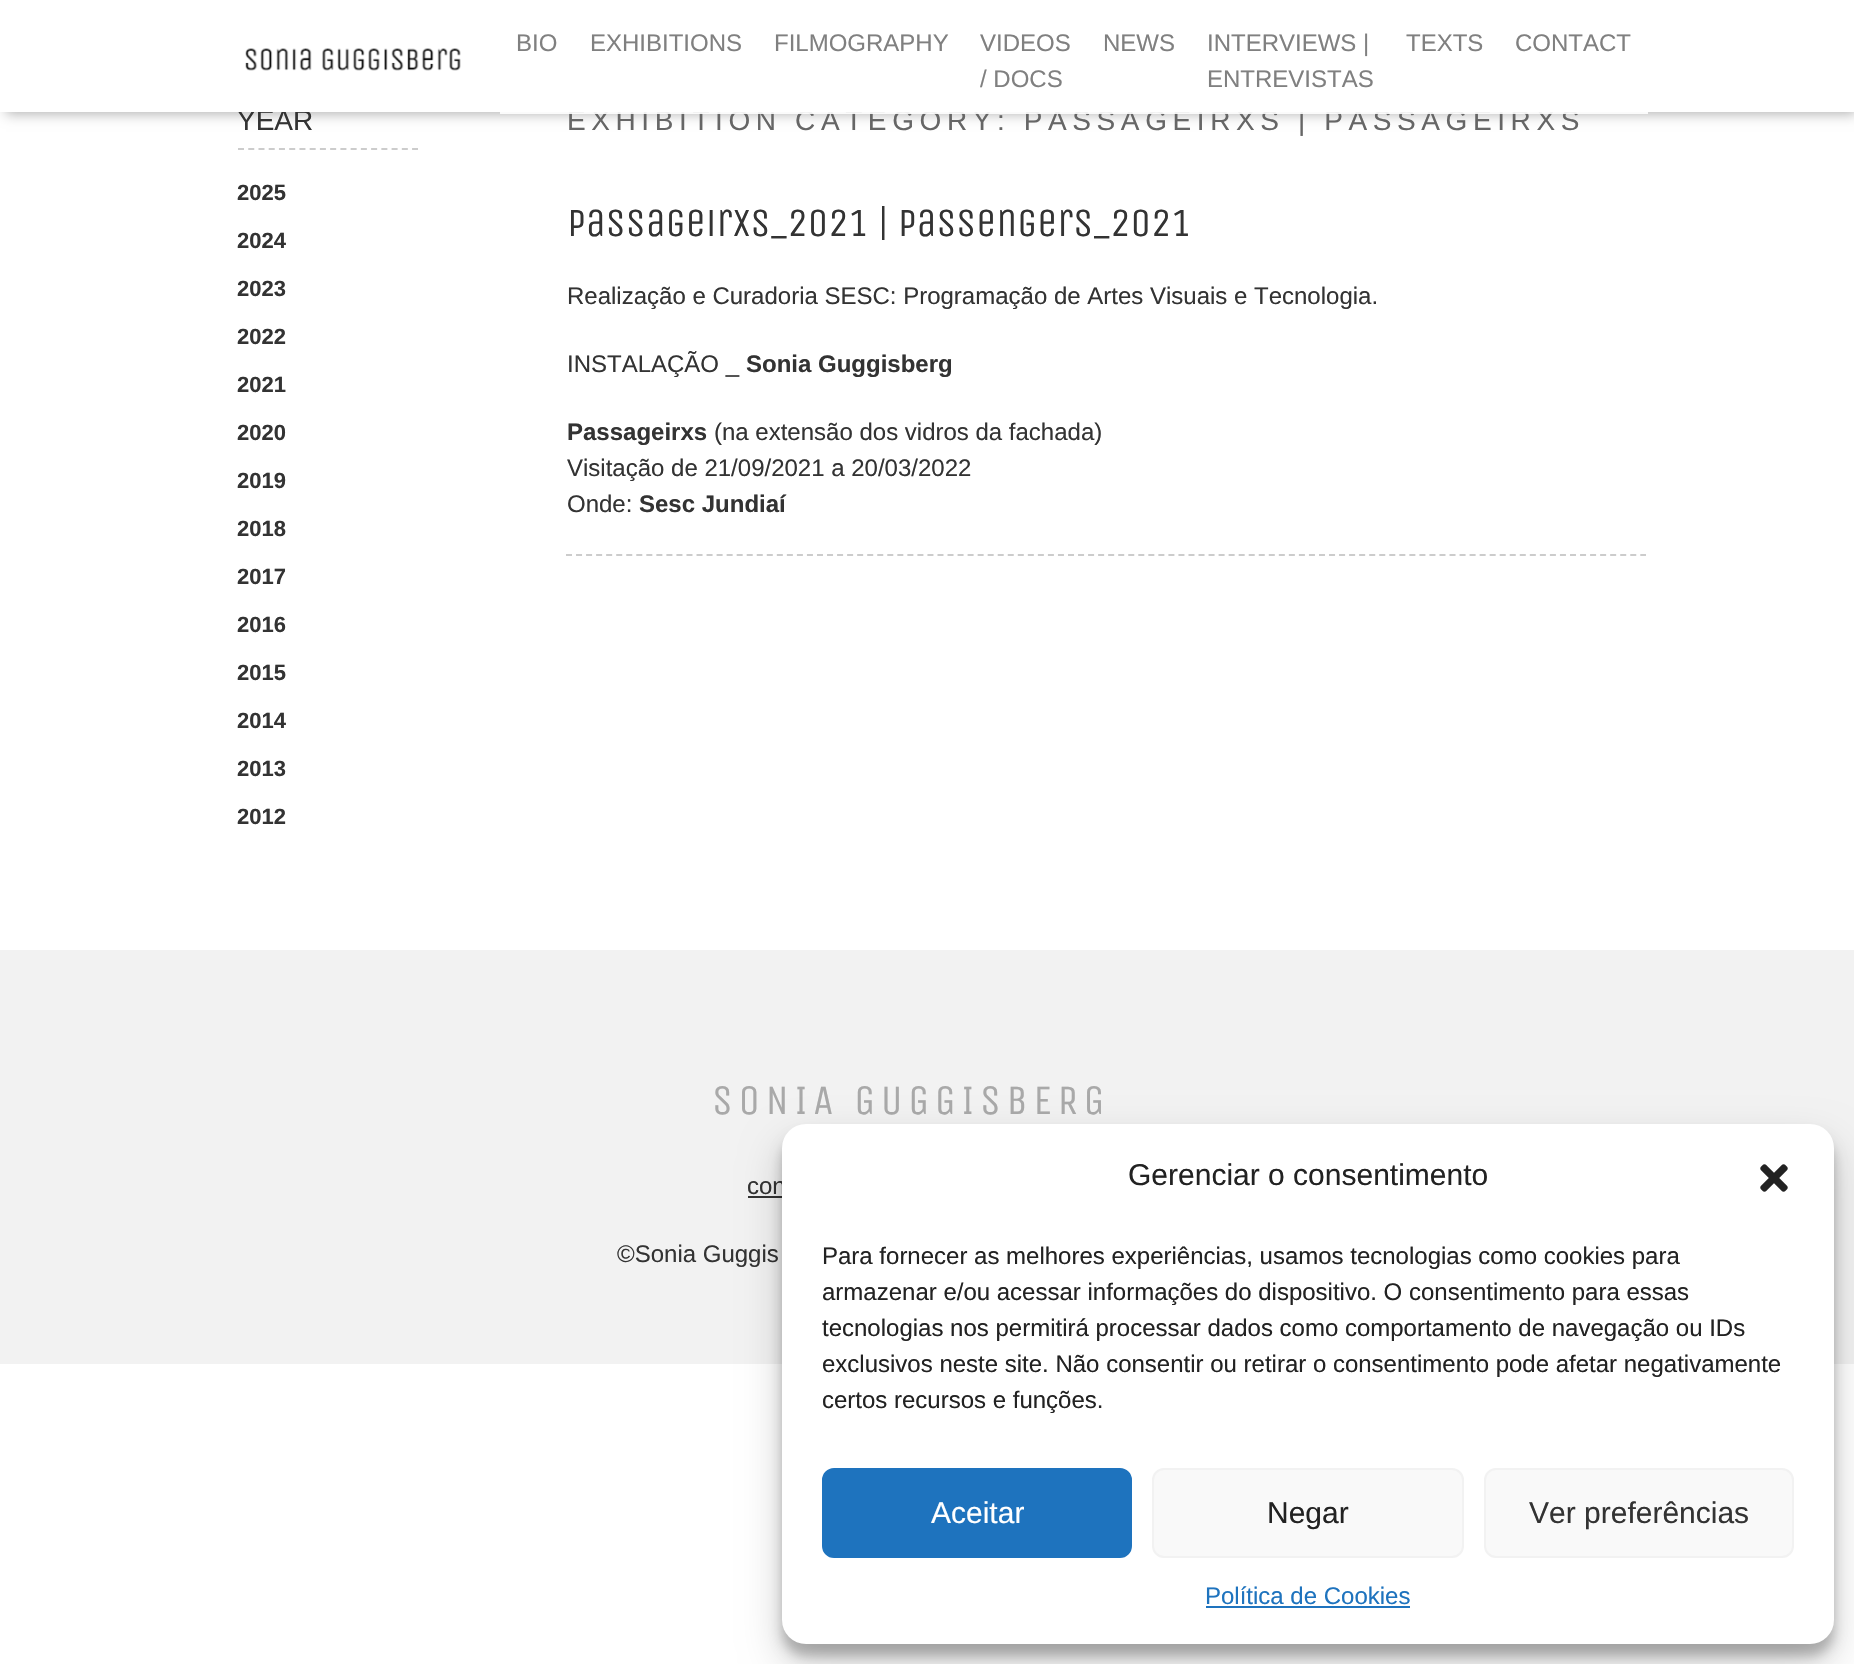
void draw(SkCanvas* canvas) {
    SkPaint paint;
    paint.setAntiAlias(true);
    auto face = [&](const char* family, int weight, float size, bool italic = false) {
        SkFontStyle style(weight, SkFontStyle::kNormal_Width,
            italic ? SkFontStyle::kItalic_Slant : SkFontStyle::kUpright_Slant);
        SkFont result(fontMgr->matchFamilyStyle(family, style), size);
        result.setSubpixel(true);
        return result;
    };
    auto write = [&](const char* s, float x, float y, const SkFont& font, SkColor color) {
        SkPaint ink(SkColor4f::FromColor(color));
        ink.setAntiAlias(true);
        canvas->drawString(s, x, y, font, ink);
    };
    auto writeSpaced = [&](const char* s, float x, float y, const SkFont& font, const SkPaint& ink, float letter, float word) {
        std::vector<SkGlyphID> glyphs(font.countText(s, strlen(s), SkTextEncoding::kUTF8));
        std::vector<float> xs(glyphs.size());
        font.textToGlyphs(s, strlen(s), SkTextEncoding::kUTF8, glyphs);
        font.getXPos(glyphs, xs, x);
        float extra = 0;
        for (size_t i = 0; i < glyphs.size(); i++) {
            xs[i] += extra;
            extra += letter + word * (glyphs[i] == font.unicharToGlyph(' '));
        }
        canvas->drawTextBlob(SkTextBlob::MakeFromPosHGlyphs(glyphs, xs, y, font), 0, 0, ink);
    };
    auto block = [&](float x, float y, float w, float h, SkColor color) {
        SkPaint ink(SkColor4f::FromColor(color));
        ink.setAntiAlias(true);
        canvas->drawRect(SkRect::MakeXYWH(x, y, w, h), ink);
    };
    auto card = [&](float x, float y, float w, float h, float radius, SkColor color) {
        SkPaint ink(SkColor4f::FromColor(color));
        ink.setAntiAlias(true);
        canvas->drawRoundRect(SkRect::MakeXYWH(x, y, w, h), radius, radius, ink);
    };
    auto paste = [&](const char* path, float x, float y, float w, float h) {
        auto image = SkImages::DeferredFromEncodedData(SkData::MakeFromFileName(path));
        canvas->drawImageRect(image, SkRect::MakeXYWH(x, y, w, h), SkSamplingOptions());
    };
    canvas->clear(SK_ColorWHITE);
    paint.setColor(SkColorSetARGB(77, 0, 0, 0));
    paint.setMaskFilter(SkMaskFilter::MakeBlur(kNormal_SkBlurStyle, 6));
    canvas->drawRect(SkRect::MakeXYWH(6, 6, 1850, 108), paint);
    paint.setMaskFilter(nullptr);
    auto kFont1 = face("Liberation Sans", 400, 28);
    write("YEAR", 237, 130, kFont1, SkColorSetRGB(51, 51, 51));
    paint.setColor(SkColorSetRGB(102, 102, 102));
    writeSpaced("EXHIBITION CATEGORY: PASSAGEIRXS | PASSAGEIRXS", 567, 130, kFont1, paint, 5.6f, 0);
    block(0, 0, 1854, 112, SK_ColorWHITE);
    paste("pic1.png", 245, 48, 216, 23);
    block(500, 112, 1148, 2, SkColorSetARGB(230, 255, 255, 255));
    auto kFont2 = face("Liberation Sans", 400, 24);
    write("BIO", 516, 51, kFont2, SkColorSetRGB(128, 128, 128));
    write("EXHIBITIONS", 590, 51, kFont2, SkColorSetRGB(128, 128, 128));
    write("FILMOGRAPHY", 774, 51, kFont2, SkColorSetRGB(128, 128, 128));
    write("VIDEOS", 980, 51, kFont2, SkColorSetRGB(128, 128, 128));
    write("/ DOCS", 980, 87, kFont2, SkColorSetRGB(128, 128, 128));
    write("NEWS", 1103, 51, kFont2, SkColorSetRGB(128, 128, 128));
    write("INTERVIEWS |", 1207, 51, kFont2, SkColorSetRGB(128, 128, 128));
    write("ENTREVISTAS", 1207, 87, kFont2, SkColorSetRGB(128, 128, 128));
    write("TEXTS", 1406, 51, kFont2, SkColorSetRGB(128, 128, 128));
    write("CONTACT", 1515, 51, kFont2, SkColorSetRGB(128, 128, 128));
    paint.setStyle(SkPaint::kStroke_Style);
    paint.setStrokeWidth(2);
    paint.setColor(SkColorSetRGB(204, 204, 204));
    paint.setPathEffect(SkDashPathEffect::Make({{6, 4.24f}}, 0));
    canvas->drawPath(SkPathBuilder().moveTo(238, 149).lineTo(418, 149).detach(), paint);
    paint.setPathEffect(nullptr);
    auto kFont3 = face("Liberation Sans", 700, 22);
    write("2025", 237, 200, kFont3, SkColorSetRGB(51, 51, 51));
    write("2024", 237, 248, kFont3, SkColorSetRGB(51, 51, 51));
    write("2023", 237, 296, kFont3, SkColorSetRGB(51, 51, 51));
    write("2022", 237, 344, kFont3, SkColorSetRGB(51, 51, 51));
    write("2021", 237, 392, kFont3, SkColorSetRGB(51, 51, 51));
    write("2020", 237, 440, kFont3, SkColorSetRGB(51, 51, 51));
    write("2019", 237, 488, kFont3, SkColorSetRGB(51, 51, 51));
    write("2018", 237, 536, kFont3, SkColorSetRGB(51, 51, 51));
    write("2017", 237, 584, kFont3, SkColorSetRGB(51, 51, 51));
    write("2016", 237, 632, kFont3, SkColorSetRGB(51, 51, 51));
    write("2015", 237, 680, kFont3, SkColorSetRGB(51, 51, 51));
    write("2014", 237, 728, kFont3, SkColorSetRGB(51, 51, 51));
    write("2013", 237, 776, kFont3, SkColorSetRGB(51, 51, 51));
    write("2012", 237, 824, kFont3, SkColorSetRGB(51, 51, 51));
    paint.setPathEffect(SkDashPathEffect::Make({{6, 4.04f}}, 0));
    canvas->drawPath(SkPathBuilder().moveTo(566, 555).lineTo(1646, 555).detach(), paint);
    paint.setPathEffect(nullptr);
    auto kFont4 = face("Unica One", 400, 40);
    write("Passageirxs_2021 | Passengers_2021", 567, 236, kFont4, SkColorSetRGB(51, 51, 51));
    write("Realização e Curadoria SESC: Programação de Artes Visuais e Tecnologia.", 567, 304, kFont2, SkColorSetRGB(51, 51, 51));
    write("INSTALAÇÃO _", 567, 372, kFont2, SkColorSetRGB(51, 51, 51));
    auto kFont5 = face("Liberation Sans", 700, 24);
    write("Sonia Guggisberg", 746, 372, kFont5, SkColorSetRGB(51, 51, 51));
    write("Passageirxs", 567, 440, kFont5, SkColorSetRGB(51, 51, 51));
    write("(na extensão dos vidros da fachada)", 714, 440, kFont2, SkColorSetRGB(51, 51, 51));
    write("Visitação de 21/09/2021 a 20/03/2022", 567, 476, kFont2, SkColorSetRGB(51, 51, 51));
    write("Onde:", 567, 512, kFont2, SkColorSetRGB(51, 51, 51));
    write("Sesc Jundiaí", 639, 512, kFont5, SkColorSetRGB(51, 51, 51));
    block(0, 950, 1854, 414, SkColorSetRGB(242, 242, 242));
    auto kFont6 = face("Unica One", 400, 42);
    paint.setStyle(SkPaint::kFill_Style);
    paint.setColor(SkColorSetRGB(169, 169, 169));
    writeSpaced("SONIA GUGGISBERG", 712, 1114, kFont6, paint, 5.6f, 0);
    write("con", 747, 1194, kFont2, SkColorSetRGB(51, 51, 51));
    block(748, 1196, 34, 2, SkColorSetRGB(51, 51, 51));
    write("©Sonia Guggis", 617, 1262, kFont2, SkColorSetRGB(51, 51, 51));
    paint.setColor(SkColorSetARGB(59, 0, 0, 0));
    paint.setMaskFilter(SkMaskFilter::MakeBlur(kNormal_SkBlurStyle, 6));
    canvas->drawRoundRect(SkRect::MakeXYWH(782, 1136, 1052, 520), 24, 24, paint);
    paint.setMaskFilter(nullptr);
    paint.setColor(SkColorSetARGB(48, 0, 0, 0));
    paint.setMaskFilter(SkMaskFilter::MakeBlur(kNormal_SkBlurStyle, 20));
    canvas->drawRoundRect(SkRect::MakeXYWH(782, 1144, 1052, 520), 24, 24, paint);
    paint.setMaskFilter(nullptr);
    card(782, 1124, 1052, 520, 24, SK_ColorWHITE);
    auto kFont7 = face("Liberation Sans", 400, 30);
    write("Gerenciar o consentimento", 1128, 1185, kFont7, SkColorSetRGB(34, 34, 34));
    paste("pic2.png", 1760, 1164, 28, 28);
    write("Para fornecer as melhores experiências, usamos tecnologias como cookies para", 822, 1264, kFont2, SkColorSetRGB(34, 34, 34));
    write("armazenar e/ou acessar informações do dispositivo. O consentimento para essas", 822, 1300, kFont2, SkColorSetRGB(34, 34, 34));
    write("tecnologias nos permitirá processar dados como comportamento de navegação ou IDs", 822, 1336, kFont2, SkColorSetRGB(34, 34, 34));
    write("exclusivos neste site. Não consentir ou retirar o consentimento pode afetar negativamente", 822, 1372, kFont2, SkColorSetRGB(34, 34, 34));
    write("certos recursos e funções.", 822, 1408, kFont2, SkColorSetRGB(34, 34, 34));
    paint.setColor(SkColorSetRGB(30, 115, 190));
    canvas->drawRoundRect(SkRect::MakeXYWH(823, 1469, 308, 88), 11, 11, paint);
    paint.setStyle(SkPaint::kStroke_Style);
    canvas->drawRoundRect(SkRect::MakeXYWH(823, 1469, 308, 88), 11, 11, paint);
    write("Aceitar", 931, 1523, kFont7, SK_ColorWHITE);
    paint.setStyle(SkPaint::kFill_Style);
    paint.setColor(SkColorSetRGB(249, 249, 249));
    canvas->drawRoundRect(SkRect::MakeXYWH(1153, 1469, 310, 88), 11, 11, paint);
    paint.setStyle(SkPaint::kStroke_Style);
    paint.setColor(SkColorSetRGB(242, 242, 242));
    canvas->drawRoundRect(SkRect::MakeXYWH(1153, 1469, 310, 88), 11, 11, paint);
    write("Negar", 1267, 1523, kFont7, SkColorSetRGB(34, 34, 34));
    paint.setStyle(SkPaint::kFill_Style);
    paint.setColor(SkColorSetRGB(249, 249, 249));
    canvas->drawRoundRect(SkRect::MakeXYWH(1485, 1469, 308, 88), 11, 11, paint);
    paint.setStyle(SkPaint::kStroke_Style);
    paint.setColor(SkColorSetRGB(242, 242, 242));
    canvas->drawRoundRect(SkRect::MakeXYWH(1485, 1469, 308, 88), 11, 11, paint);
    write("Ver preferências", 1529, 1523, kFont7, SkColorSetRGB(51, 51, 51));
    write("Política de Cookies", 1205, 1604, kFont2, SkColorSetRGB(30, 115, 190));
    block(1206, 1606, 204, 2, SkColorSetRGB(30, 115, 190));
}
